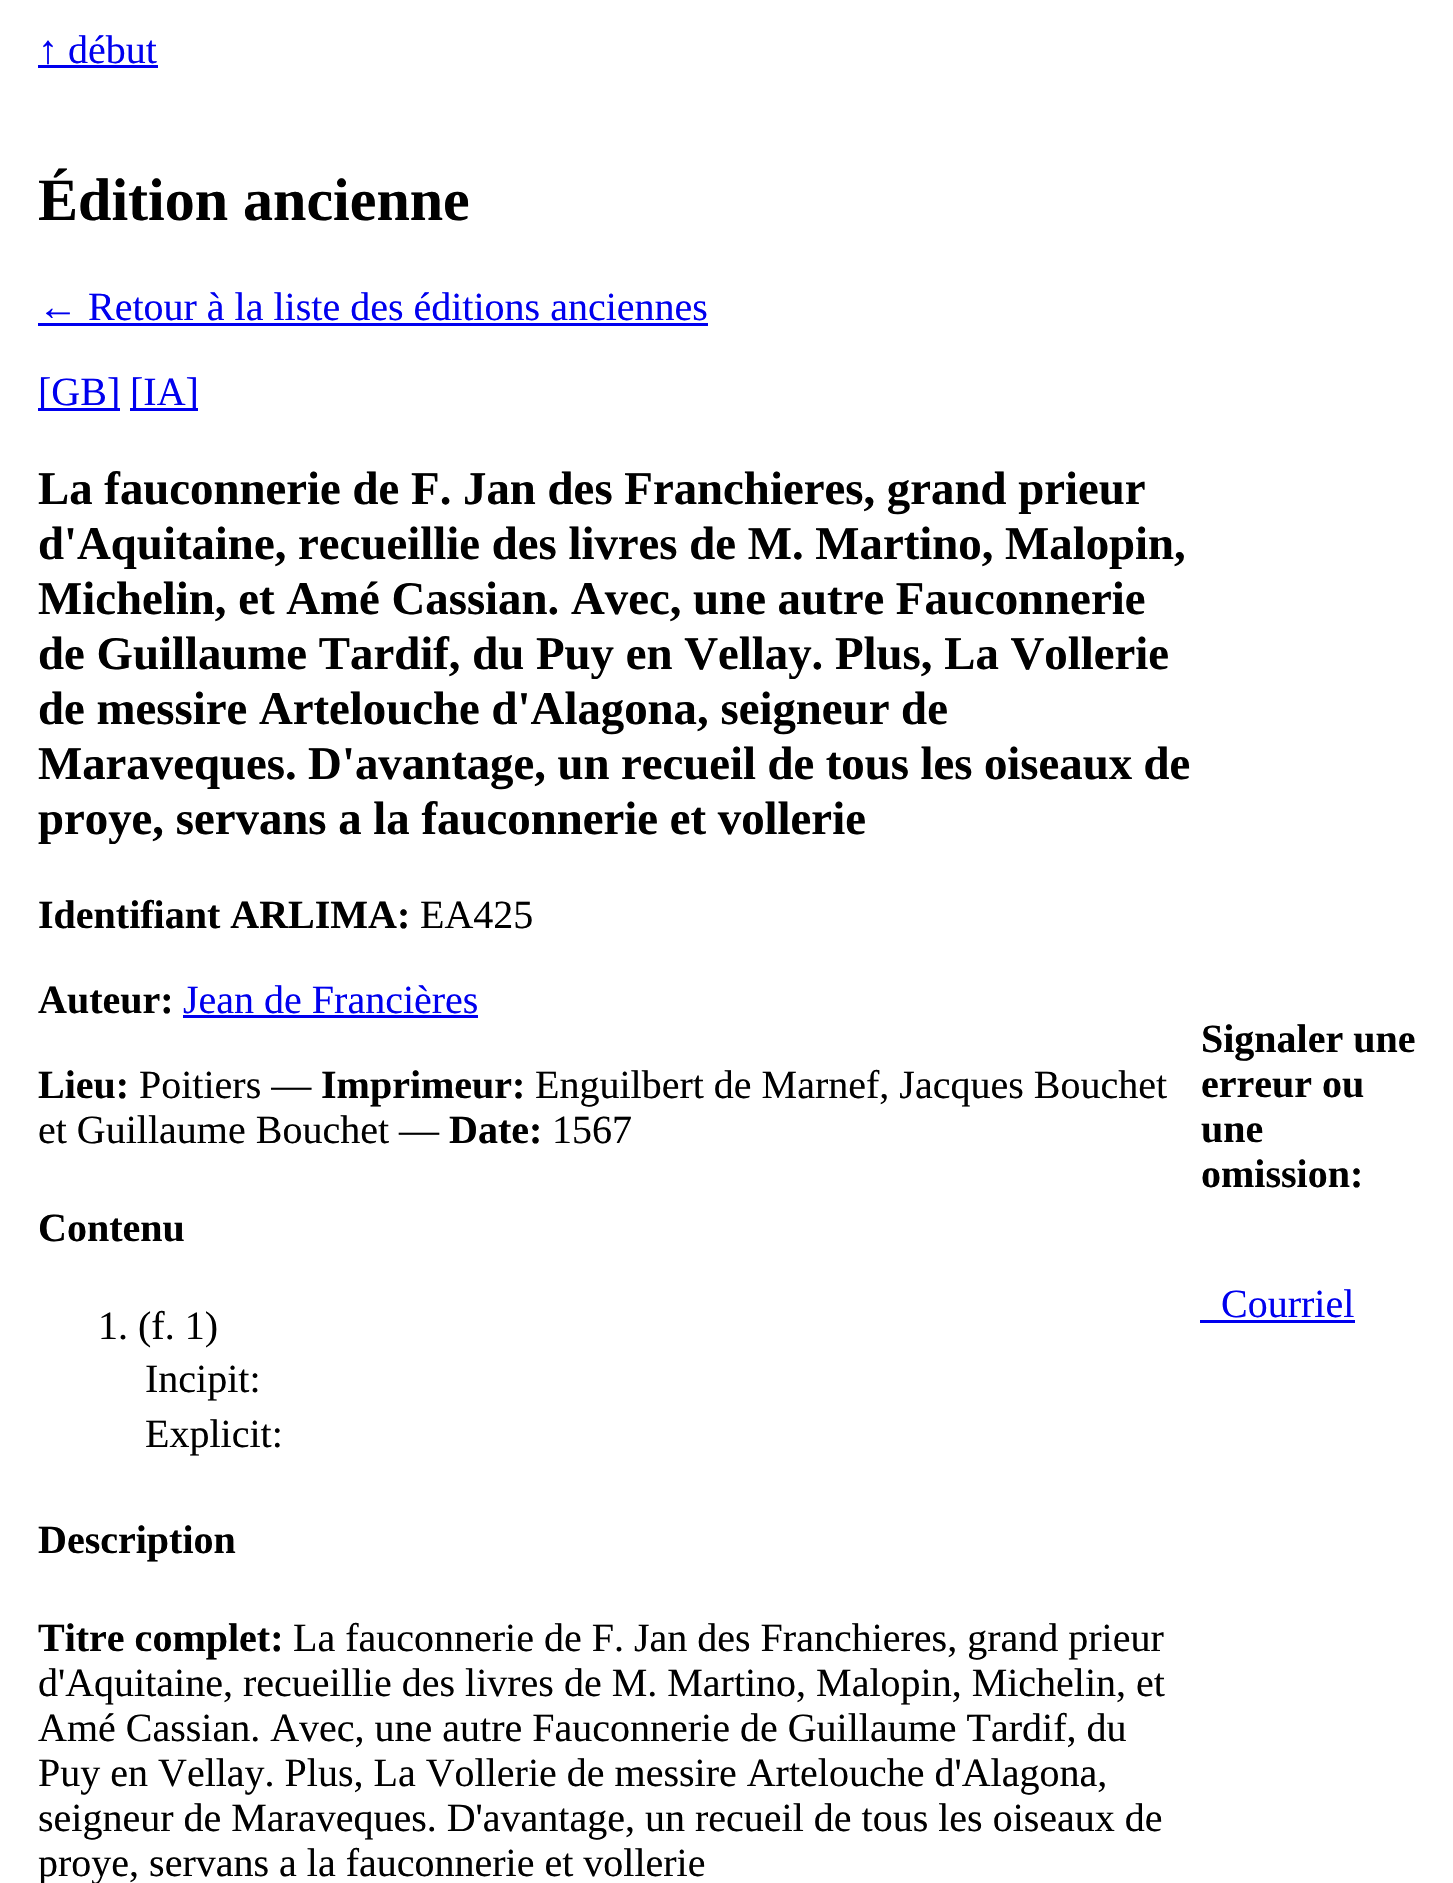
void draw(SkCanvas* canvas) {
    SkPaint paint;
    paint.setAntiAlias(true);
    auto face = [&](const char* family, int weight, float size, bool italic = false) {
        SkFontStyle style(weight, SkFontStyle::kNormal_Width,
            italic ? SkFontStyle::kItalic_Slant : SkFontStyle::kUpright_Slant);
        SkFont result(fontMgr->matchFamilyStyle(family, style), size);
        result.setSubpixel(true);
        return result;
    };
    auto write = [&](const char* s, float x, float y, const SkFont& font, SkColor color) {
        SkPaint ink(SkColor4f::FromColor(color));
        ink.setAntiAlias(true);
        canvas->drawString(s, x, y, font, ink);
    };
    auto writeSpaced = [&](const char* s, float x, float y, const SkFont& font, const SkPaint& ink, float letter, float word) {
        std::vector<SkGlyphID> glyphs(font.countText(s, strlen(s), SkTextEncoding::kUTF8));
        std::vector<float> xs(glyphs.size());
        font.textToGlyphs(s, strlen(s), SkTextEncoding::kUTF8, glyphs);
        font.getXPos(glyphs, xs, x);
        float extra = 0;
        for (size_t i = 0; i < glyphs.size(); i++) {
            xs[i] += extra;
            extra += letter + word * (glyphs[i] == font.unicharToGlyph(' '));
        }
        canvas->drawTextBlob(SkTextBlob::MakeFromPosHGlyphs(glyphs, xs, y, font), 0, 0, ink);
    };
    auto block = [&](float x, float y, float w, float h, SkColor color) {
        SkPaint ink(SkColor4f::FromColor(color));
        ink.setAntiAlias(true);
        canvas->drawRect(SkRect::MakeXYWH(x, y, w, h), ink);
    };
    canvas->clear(SK_ColorWHITE);
    auto kFont1 = face("Liberation Serif", 400, 40);
    write("↑ début", 38, 63, kFont1, SkColorSetRGB(0, 0, 238));
    block(38, 65, 120, 3, SkColorSetRGB(0, 0, 238));
    auto kFont2 = face("Liberation Serif", 700, 60);
    write("Édition ancienne", 38, 220, kFont2, SK_ColorBLACK);
    write("← Retour à la liste des éditions anciennes", 38, 320, kFont1, SkColorSetRGB(0, 0, 238));
    block(38, 323, 670, 3, SkColorSetRGB(0, 0, 238));
    block(38, 408, 82, 3, SkColorSetRGB(0, 0, 238));
    write("[GB]", 38, 405, kFont1, SkColorSetRGB(0, 0, 238));
    block(130, 408, 68, 3, SkColorSetRGB(0, 0, 238));
    write("[IA]", 130, 405, kFont1, SkColorSetRGB(0, 0, 238));
    auto kFont3 = face("Liberation Serif", 700, 46.8f);
    write("La fauconnerie de F. Jan des Franchieres, grand prieur", 38, 504, kFont3, SK_ColorBLACK);
    write("d'Aquitaine, recueillie des livres de M. Martino, Malopin,", 38, 559, kFont3, SK_ColorBLACK);
    write("Michelin, et Amé Cassian. Avec, une autre Fauconnerie", 38, 614, kFont3, SK_ColorBLACK);
    write("de Guillaume Tardif, du Puy en Vellay. Plus, La Vollerie", 38, 669, kFont3, SK_ColorBLACK);
    write("de messire Artelouche d'Alagona, seigneur de", 38, 724, kFont3, SK_ColorBLACK);
    paint.setColor(SK_ColorBLACK);
    writeSpaced("Maraveques. D'avantage, un recueil de tous les oiseaux de", 38, 779, kFont3, paint, 0, -0.25f);
    write("proye, servans a la fauconnerie et vollerie", 38, 834, kFont3, SK_ColorBLACK);
    auto kFont4 = face("Liberation Serif", 700, 40);
    write("Identifiant ARLIMA:", 38, 928, kFont4, SK_ColorBLACK);
    write("EA425", 420, 928, kFont1, SK_ColorBLACK);
    write("Auteur:", 38, 1013, kFont4, SK_ColorBLACK);
    write("Jean de Francières", 183, 1013, kFont1, SkColorSetRGB(0, 0, 238));
    block(183, 1015, 295, 3, SkColorSetRGB(0, 0, 238));
    write("Lieu:", 38, 1098, kFont4, SK_ColorBLACK);
    write("Poitiers —", 139, 1098, kFont1, SK_ColorBLACK);
    write("Imprimeur:", 321, 1098, kFont4, SK_ColorBLACK);
    write("Enguilbert de Marnef, Jacques Bouchet", 535, 1098, kFont1, SK_ColorBLACK);
    write("et Guillaume Bouchet —", 38, 1143, kFont1, SK_ColorBLACK);
    write("Date:", 449, 1143, kFont4, SK_ColorBLACK);
    write("1567", 552, 1143, kFont1, SK_ColorBLACK);
    write("Contenu", 38, 1241, kFont4, SK_ColorBLACK);
    write("1. (f. 1)", 98, 1339, kFont1, SK_ColorBLACK);
    write("Incipit:", 145, 1392, kFont1, SK_ColorBLACK);
    write("Explicit:", 145, 1447, kFont1, SK_ColorBLACK);
    write("Description", 38, 1553, kFont4, SK_ColorBLACK);
    write("Titre complet:", 38, 1651, kFont4, SK_ColorBLACK);
    write("La fauconnerie de F. Jan des Franchieres, grand prieur", 293, 1651, kFont1, SK_ColorBLACK);
    write("d'Aquitaine, recueillie des livres de M. Martino, Malopin, Michelin, et", 38, 1696, kFont1, SK_ColorBLACK);
    write("Amé Cassian. Avec, une autre Fauconnerie de Guillaume Tardif, du", 38, 1741, kFont1, SK_ColorBLACK);
    write("Puy en Vellay. Plus, La Vollerie de messire Artelouche d'Alagona,", 38, 1786, kFont1, SK_ColorBLACK);
    write("seigneur de Maraveques. D'avantage, un recueil de tous les oiseaux de", 38, 1831, kFont1, SK_ColorBLACK);
    write("proye, servans a la fauconnerie et vollerie", 38, 1876, kFont1, SK_ColorBLACK);
    write("Signaler une", 1201, 1052, kFont4, SK_ColorBLACK);
    write("erreur ou", 1201, 1097, kFont4, SK_ColorBLACK);
    write("une", 1201, 1142, kFont4, SK_ColorBLACK);
    write("omission:", 1201, 1187, kFont4, SK_ColorBLACK);
    write("Courriel", 1221, 1317, kFont1, SkColorSetRGB(0, 0, 238));
    block(1200, 1320, 155, 3, SkColorSetRGB(0, 0, 238));
}
